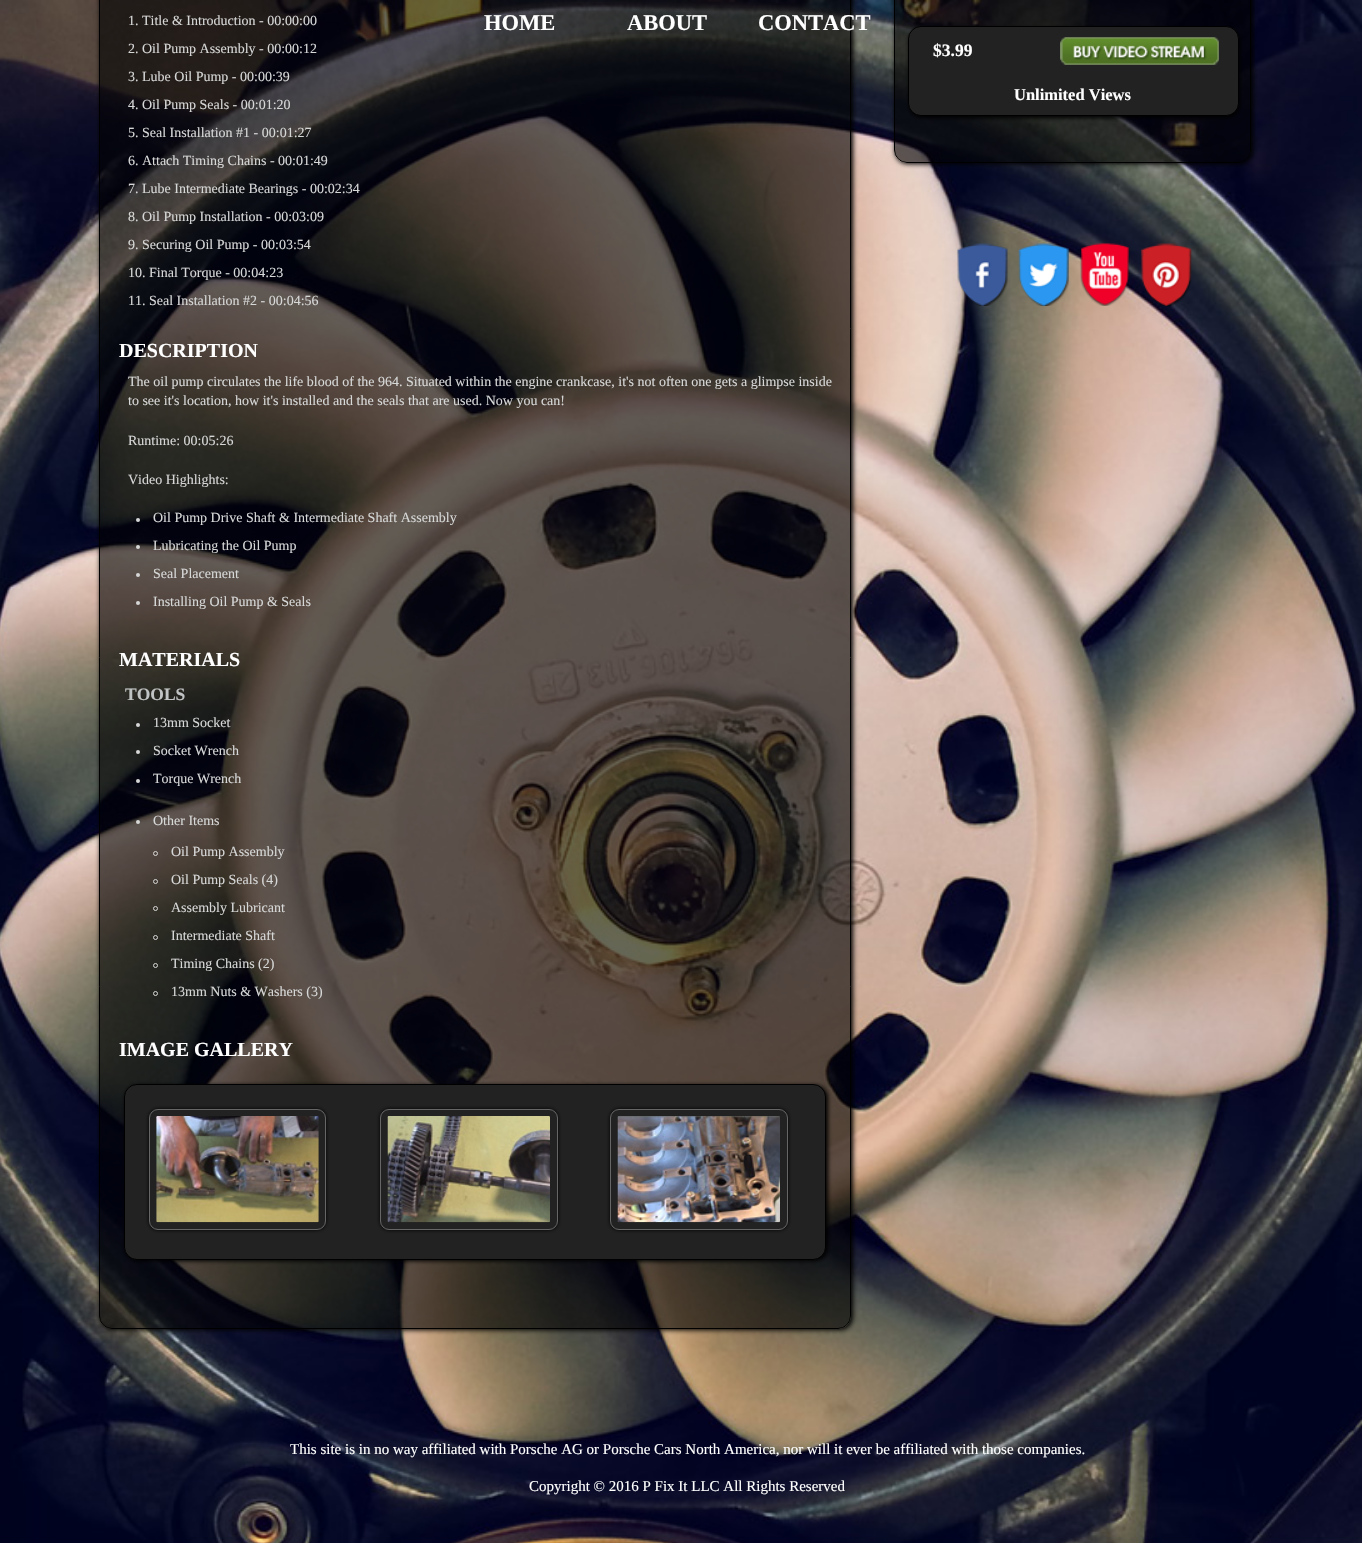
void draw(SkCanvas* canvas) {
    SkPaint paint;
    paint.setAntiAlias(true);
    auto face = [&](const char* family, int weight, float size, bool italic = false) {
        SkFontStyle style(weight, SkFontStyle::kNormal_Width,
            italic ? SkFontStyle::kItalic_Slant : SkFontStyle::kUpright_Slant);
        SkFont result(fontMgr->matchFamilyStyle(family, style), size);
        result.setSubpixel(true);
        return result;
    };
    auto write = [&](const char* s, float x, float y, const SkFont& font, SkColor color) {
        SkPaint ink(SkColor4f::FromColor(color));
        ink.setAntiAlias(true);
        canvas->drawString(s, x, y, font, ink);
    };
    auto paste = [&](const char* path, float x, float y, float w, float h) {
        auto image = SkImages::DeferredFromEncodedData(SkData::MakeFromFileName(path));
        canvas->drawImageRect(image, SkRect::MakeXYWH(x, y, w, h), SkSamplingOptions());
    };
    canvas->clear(SK_ColorWHITE);
    paste("pic1.png", 0, 0, 1362, 1543);
    canvas->save();
    canvas->clipPath(SkPathBuilder(SkPathFillType::kEvenOdd).moveTo(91, 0).lineTo(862, 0).lineTo(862, 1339).lineTo(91, 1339).close().moveTo(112, -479).lineTo(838, -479).cubicTo(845, -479, 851, -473, 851, -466).lineTo(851, 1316).cubicTo(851, 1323, 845, 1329, 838, 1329).lineTo(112, 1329).cubicTo(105, 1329, 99, 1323, 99, 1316).lineTo(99, -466).cubicTo(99, -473, 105, -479, 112, -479).close().detach(), true);
    paint.setColor(SK_ColorBLACK);
    paint.setMaskFilter(SkMaskFilter::MakeBlur(kNormal_SkBlurStyle, 2.5f));
    canvas->drawRoundRect(SkRect::MakeXYWH(100, -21, 753, 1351), 13, 13, paint);
    paint.setMaskFilter(nullptr);
    canvas->restore();
    paint.setColor(SkColorSetARGB(153, 0, 0, 0));
    canvas->drawRoundRect(SkRect::MakeXYWH(99.5f, -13.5f, 751, 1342), 12.5f, 12.5f, paint);
    paint.setStyle(SkPaint::kStroke_Style);
    paint.setStrokeWidth(1);
    paint.setColor(SK_ColorBLACK);
    canvas->drawRoundRect(SkRect::MakeXYWH(99.5f, -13.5f, 751, 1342), 12.5f, 12.5f, paint);
    auto kFont1 = face("Liberation Serif", 400, 14);
    write("1. Title & Introduction - 00:00:00", 128, 25, kFont1, SkColorSetRGB(214, 215, 215));
    write("2. Oil Pump Assembly - 00:00:12", 128, 53, kFont1, SkColorSetRGB(214, 215, 215));
    write("3. Lube Oil Pump - 00:00:39", 128, 81, kFont1, SkColorSetRGB(214, 215, 215));
    write("4. Oil Pump Seals - 00:01:20", 128, 109, kFont1, SkColorSetRGB(214, 215, 215));
    write("5. Seal Installation #1 - 00:01:27", 128, 137, kFont1, SkColorSetRGB(214, 215, 215));
    write("6. Attach Timing Chains - 00:01:49", 128, 165, kFont1, SkColorSetRGB(214, 215, 215));
    write("7. Lube Intermediate Bearings - 00:02:34", 128, 193, kFont1, SkColorSetRGB(214, 215, 215));
    write("8. Oil Pump Installation - 00:03:09", 128, 221, kFont1, SkColorSetRGB(214, 215, 215));
    write("9. Securing Oil Pump - 00:03:54", 128, 249, kFont1, SkColorSetRGB(214, 215, 215));
    write("10. Final Torque - 00:04:23", 128, 277, kFont1, SkColorSetRGB(214, 215, 215));
    write("11. Seal Installation #2 - 00:04:56", 128, 305, kFont1, SkColorSetRGB(214, 215, 215));
    auto kFont2 = face("Liberation Serif", 700, 20);
    write("DESCRIPTION", 119, 357, kFont2, SK_ColorWHITE);
    write("The oil pump circulates the life blood of the 964. Situated within the engine crankcase, it's not often one gets a glimpse inside", 128, 386, kFont1, SkColorSetRGB(214, 215, 215));
    write("to see it's location, how it's installed and the seals that are used. Now you can!", 128, 405, kFont1, SkColorSetRGB(214, 215, 215));
    write("Runtime: 00:05:26", 128, 445, kFont1, SkColorSetRGB(214, 215, 215));
    write("Video Highlights:", 128, 484, kFont1, SkColorSetRGB(214, 215, 215));
    paint.setStyle(SkPaint::kFill_Style);
    paint.setColor(SkColorSetRGB(214, 215, 215));
    canvas->drawCircle(138, 520, 2, paint);
    write("Oil Pump Drive Shaft & Intermediate Shaft Assembly", 153, 522, kFont1, SkColorSetRGB(214, 215, 215));
    canvas->drawCircle(138, 547, 2, paint);
    write("Lubricating the Oil Pump", 153, 550, kFont1, SkColorSetRGB(214, 215, 215));
    canvas->drawCircle(138, 575, 2, paint);
    write("Seal Placement", 153, 578, kFont1, SkColorSetRGB(214, 215, 215));
    canvas->drawCircle(138, 603, 2, paint);
    write("Installing Oil Pump & Seals", 153, 606, kFont1, SkColorSetRGB(214, 215, 215));
    write("MATERIALS", 119, 666, kFont2, SK_ColorWHITE);
    auto kFont3 = face("Liberation Serif", 700, 17.5f);
    write("TOOLS", 125, 700, kFont3, SkColorSetRGB(193, 196, 196));
    canvas->drawCircle(138, 725, 2, paint);
    write("13mm Socket", 153, 727, kFont1, SkColorSetRGB(214, 215, 215));
    canvas->drawCircle(138, 752, 2, paint);
    write("Socket Wrench", 153, 755, kFont1, SkColorSetRGB(214, 215, 215));
    canvas->drawCircle(138, 781, 2, paint);
    write("Torque Wrench", 153, 783, kFont1, SkColorSetRGB(214, 215, 215));
    canvas->drawCircle(138, 822, 2, paint);
    write("Other Items", 153, 825, kFont1, SkColorSetRGB(214, 215, 215));
    paint.setStyle(SkPaint::kStroke_Style);
    canvas->drawCircle(155.5f, 853.5f, 2, paint);
    write("Oil Pump Assembly", 171, 856, kFont1, SkColorSetRGB(214, 215, 215));
    canvas->drawCircle(155.5f, 881.5f, 2, paint);
    write("Oil Pump Seals (4)", 171, 884, kFont1, SkColorSetRGB(214, 215, 215));
    canvas->drawCircle(155.5f, 908.5f, 2, paint);
    write("Assembly Lubricant", 171, 912, kFont1, SkColorSetRGB(214, 215, 215));
    canvas->drawCircle(155.5f, 937.5f, 2, paint);
    write("Intermediate Shaft", 171, 940, kFont1, SkColorSetRGB(214, 215, 215));
    canvas->drawCircle(155.5f, 965.5f, 2, paint);
    write("Timing Chains (2)", 171, 968, kFont1, SkColorSetRGB(214, 215, 215));
    canvas->drawCircle(155.5f, 993.5f, 2, paint);
    write("13mm Nuts & Washers (3)", 171, 996, kFont1, SkColorSetRGB(214, 215, 215));
    write("IMAGE GALLERY", 119, 1056, kFont2, SK_ColorWHITE);
    paint.setStyle(SkPaint::kFill_Style);
    paint.setColor(SK_ColorBLACK);
    paint.setMaskFilter(SkMaskFilter::MakeBlur(kNormal_SkBlurStyle, 2));
    canvas->drawRoundRect(SkRect::MakeXYWH(125, 1085, 703, 176), 13, 13, paint);
    paint.setMaskFilter(nullptr);
    paint.setColor(SkColorSetRGB(34, 34, 34));
    canvas->drawRoundRect(SkRect::MakeXYWH(124.5f, 1084.5f, 701, 175), 12.5f, 12.5f, paint);
    paint.setStyle(SkPaint::kStroke_Style);
    paint.setColor(SK_ColorBLACK);
    canvas->drawRoundRect(SkRect::MakeXYWH(124.5f, 1084.5f, 701, 175), 12.5f, 12.5f, paint);
    paint.setStyle(SkPaint::kFill_Style);
    paint.setMaskFilter(SkMaskFilter::MakeBlur(kNormal_SkBlurStyle, 2));
    canvas->drawRoundRect(SkRect::MakeXYWH(149, 1109, 177, 121), 9, 9, paint);
    paint.setMaskFilter(nullptr);
    paint.setMaskFilter(SkMaskFilter::MakeBlur(kNormal_SkBlurStyle, 2));
    canvas->drawRoundRect(SkRect::MakeXYWH(380, 1109, 178, 121), 9, 9, paint);
    paint.setMaskFilter(nullptr);
    paint.setMaskFilter(SkMaskFilter::MakeBlur(kNormal_SkBlurStyle, 2));
    canvas->drawRoundRect(SkRect::MakeXYWH(610, 1109, 178, 121), 9, 9, paint);
    paint.setMaskFilter(nullptr);
    paint.setColor(SkColorSetRGB(34, 34, 34));
    canvas->drawRoundRect(SkRect::MakeXYWH(149.5f, 1109.5f, 176, 120), 8.5f, 8.5f, paint);
    paint.setStyle(SkPaint::kStroke_Style);
    paint.setColor(SkColorSetRGB(102, 102, 102));
    canvas->drawRoundRect(SkRect::MakeXYWH(149.5f, 1109.5f, 176, 120), 8.5f, 8.5f, paint);
    paint.setStyle(SkPaint::kFill_Style);
    paint.setColor(SkColorSetRGB(34, 34, 34));
    canvas->drawRoundRect(SkRect::MakeXYWH(380.5f, 1109.5f, 177, 120), 8.5f, 8.5f, paint);
    paint.setStyle(SkPaint::kStroke_Style);
    paint.setColor(SkColorSetRGB(102, 102, 102));
    canvas->drawRoundRect(SkRect::MakeXYWH(380.5f, 1109.5f, 177, 120), 8.5f, 8.5f, paint);
    paint.setStyle(SkPaint::kFill_Style);
    paint.setColor(SkColorSetRGB(34, 34, 34));
    canvas->drawRoundRect(SkRect::MakeXYWH(610.5f, 1109.5f, 177, 120), 8.5f, 8.5f, paint);
    paint.setStyle(SkPaint::kStroke_Style);
    paint.setColor(SkColorSetRGB(102, 102, 102));
    canvas->drawRoundRect(SkRect::MakeXYWH(610.5f, 1109.5f, 177, 120), 8.5f, 8.5f, paint);
    paste("pic2.png", 156, 1116, 163, 107);
    paste("pic3.png", 387, 1116, 163, 107);
    paste("pic4.png", 617, 1116, 163, 107);
    canvas->save();
    canvas->clipPath(SkPathBuilder(SkPathFillType::kEvenOdd).moveTo(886, 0).lineTo(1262, 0).lineTo(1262, 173).lineTo(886, 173).close().moveTo(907, -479).lineTo(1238, -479).cubicTo(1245, -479, 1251, -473, 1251, -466).lineTo(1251, 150).cubicTo(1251, 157, 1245, 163, 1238, 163).lineTo(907, 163).cubicTo(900, 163, 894, 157, 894, 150).lineTo(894, -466).cubicTo(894, -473, 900, -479, 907, -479).close().detach(), true);
    paint.setStyle(SkPaint::kFill_Style);
    paint.setColor(SK_ColorBLACK);
    paint.setMaskFilter(SkMaskFilter::MakeBlur(kNormal_SkBlurStyle, 2.5f));
    canvas->drawRoundRect(SkRect::MakeXYWH(895, -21, 358, 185), 13, 13, paint);
    paint.setMaskFilter(nullptr);
    canvas->restore();
    paint.setColor(SkColorSetARGB(153, 0, 0, 0));
    canvas->drawRoundRect(SkRect::MakeXYWH(894.5f, -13.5f, 356, 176), 12.5f, 12.5f, paint);
    paint.setStyle(SkPaint::kStroke_Style);
    paint.setColor(SK_ColorBLACK);
    canvas->drawRoundRect(SkRect::MakeXYWH(894.5f, -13.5f, 356, 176), 12.5f, 12.5f, paint);
    paint.setStyle(SkPaint::kFill_Style);
    paint.setMaskFilter(SkMaskFilter::MakeBlur(kNormal_SkBlurStyle, 2));
    canvas->drawRoundRect(SkRect::MakeXYWH(909, 28, 331, 90), 13, 13, paint);
    paint.setMaskFilter(nullptr);
    paint.setColor(SkColorSetRGB(34, 34, 34));
    canvas->drawRoundRect(SkRect::MakeXYWH(908.5f, 26.5f, 330, 89), 12.5f, 12.5f, paint);
    paint.setStyle(SkPaint::kStroke_Style);
    paint.setColor(SK_ColorBLACK);
    canvas->drawRoundRect(SkRect::MakeXYWH(908.5f, 26.5f, 330, 89), 12.5f, 12.5f, paint);
    write("$3.99", 933, 56, kFont3, SK_ColorWHITE);
    paste("pic5.png", 1060, 37, 159, 28);
    auto kFont4 = face("Liberation Serif", 700, 16.5f);
    write("Unlimited Views", 1014, 100, kFont4, SK_ColorWHITE);
    paste("pic6.png", 957, 243, 51, 63);
    paste("pic7.png", 1018, 243, 51, 63);
    paste("pic8.png", 1080, 243, 50, 63);
    paste("pic9.png", 1141, 243, 51, 63);
    auto kFont5 = face("Liberation Serif", 700, 22.5f);
    write("HOME", 484, 30, kFont5, SK_ColorWHITE);
    write("ABOUT", 627, 30, kFont5, SK_ColorWHITE);
    write("CONTACT", 758, 30, kFont5, SK_ColorWHITE);
    auto kFont6 = face("Liberation Serif", 400, 15);
    write("This site is in no way affiliated with Porsche AG or Porsche Cars North America, nor will it ever be affiliated with those companies.", 290, 1454, kFont6, SK_ColorWHITE);
    write("Copyright © 2016 P Fix It LLC All Rights Reserved", 529, 1491, kFont6, SK_ColorWHITE);
}
